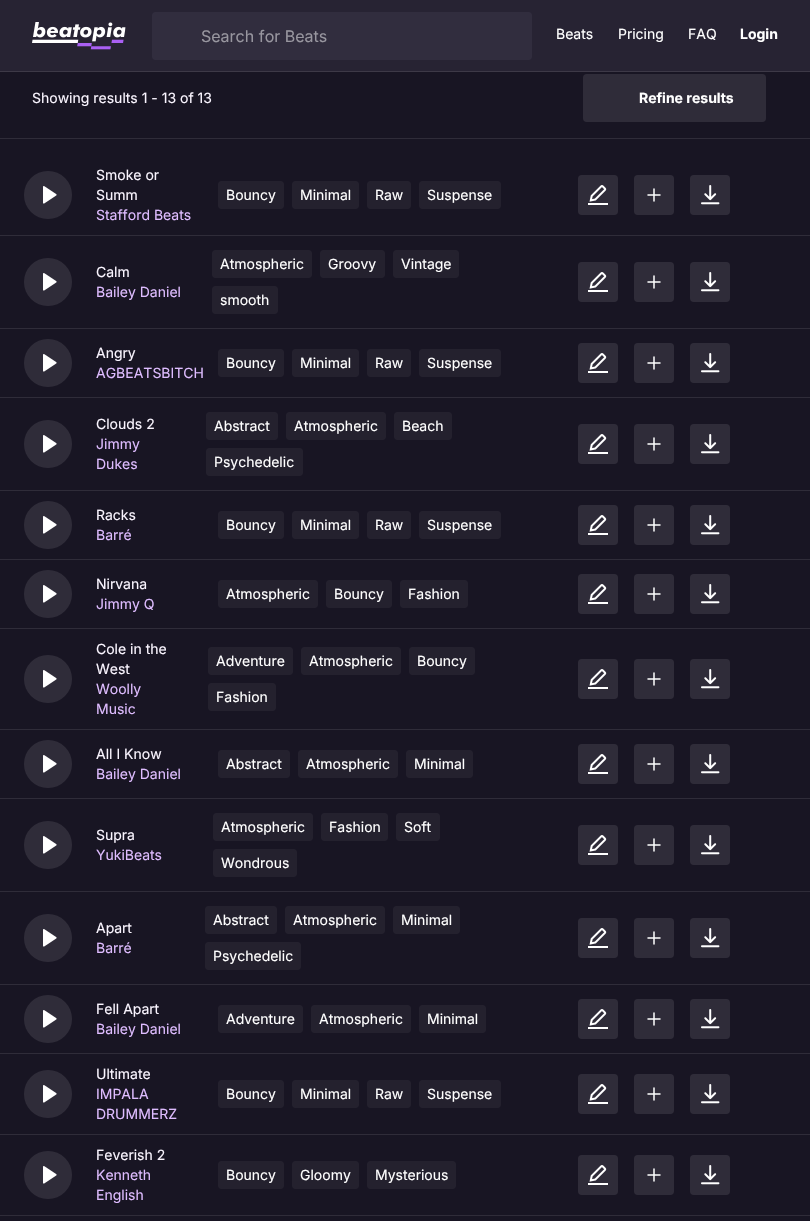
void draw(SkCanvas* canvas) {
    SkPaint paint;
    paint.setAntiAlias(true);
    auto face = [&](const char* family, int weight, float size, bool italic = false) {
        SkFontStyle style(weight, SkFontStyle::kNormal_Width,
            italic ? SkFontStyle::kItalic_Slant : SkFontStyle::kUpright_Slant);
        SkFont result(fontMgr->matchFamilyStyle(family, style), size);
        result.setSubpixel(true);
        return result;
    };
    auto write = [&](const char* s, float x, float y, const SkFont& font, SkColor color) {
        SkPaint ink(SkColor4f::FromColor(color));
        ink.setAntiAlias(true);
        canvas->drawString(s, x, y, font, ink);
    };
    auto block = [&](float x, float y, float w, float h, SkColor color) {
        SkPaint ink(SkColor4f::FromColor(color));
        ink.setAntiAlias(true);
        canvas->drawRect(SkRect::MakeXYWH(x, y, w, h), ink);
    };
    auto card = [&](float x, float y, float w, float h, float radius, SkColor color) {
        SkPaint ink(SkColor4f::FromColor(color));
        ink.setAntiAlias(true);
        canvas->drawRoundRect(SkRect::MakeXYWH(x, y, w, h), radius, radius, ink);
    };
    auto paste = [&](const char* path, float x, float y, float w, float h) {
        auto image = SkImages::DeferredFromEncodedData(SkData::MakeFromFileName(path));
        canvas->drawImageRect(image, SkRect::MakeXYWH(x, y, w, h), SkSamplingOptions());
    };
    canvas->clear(SkColorSetRGB(24, 21, 35));
    block(0, 0, 810, 71, SkColorSetRGB(39, 35, 51));
    block(0, 71, 810, 1, SkColorSetRGB(61, 57, 71));
    paste("pic1.png", 32, 22, 94, 28);
    card(152, 12, 380, 48, 4, SkColorSetRGB(49, 45, 62));
    auto kFont1 = face("Inter", 400, 16);
    write("Search for Beats", 201, 42, kFont1, SkColorSetRGB(152, 150, 159));
    auto kFont2 = face("Inter", 400, 14);
    write("Beats", 556, 39, kFont2, SK_ColorWHITE);
    write("Pricing", 618, 39, kFont2, SK_ColorWHITE);
    write("FAQ", 688, 39, kFont2, SK_ColorWHITE);
    auto kFont3 = face("Inter", 700, 14);
    write("Login", 740, 39, kFont3, SK_ColorWHITE);
    block(0, 138, 810, 1, SkColorSetRGB(47, 44, 57));
    write("Showing results 1 - 13 of 13", 32, 103, kFont2, SkColorSetRGB(250, 245, 255));
    card(583, 74, 183, 48, 4, SkColorSetRGB(47, 44, 57));
    write("Refine results", 639, 103, kFont3, SK_ColorWHITE);
    block(0, 235, 810, 1, SkColorSetRGB(47, 44, 57));
    paint.setColor(SkColorSetRGB(47, 44, 57));
    canvas->drawCircle(48, 195, 24, paint);
    paste("pic2.png", 43, 186, 14, 18);
    write("Smoke or", 96, 180, kFont2, SkColorSetRGB(250, 245, 255));
    write("Summ", 96, 200, kFont2, SkColorSetRGB(250, 245, 255));
    write("Stafford Beats", 96, 220, kFont2, SkColorSetRGB(222, 188, 255));
    card(218, 181, 66, 28, 4, SkColorSetRGB(36, 33, 46));
    write("Bouncy", 226, 200, kFont2, SK_ColorWHITE);
    card(292, 181, 67, 28, 4, SkColorSetRGB(36, 33, 46));
    write("Minimal", 300, 200, kFont2, SK_ColorWHITE);
    card(367, 181, 44, 28, 4, SkColorSetRGB(36, 33, 46));
    write("Raw", 375, 200, kFont2, SK_ColorWHITE);
    card(419, 181, 82, 28, 4, SkColorSetRGB(36, 33, 46));
    write("Suspense", 427, 200, kFont2, SK_ColorWHITE);
    card(578, 175, 40, 40, 4, SkColorSetRGB(47, 44, 57));
    paste("pic3.png", 588, 185, 20, 20);
    card(634, 175, 40, 40, 4, SkColorSetRGB(47, 44, 57));
    paint.setStyle(SkPaint::kStroke_Style);
    paint.setStrokeWidth(1.5f);
    paint.setStrokeCap(SkPaint::kRound_Cap);
    paint.setStrokeJoin(SkPaint::kRound_Join);
    paint.setColor(SK_ColorWHITE);
    canvas->drawPath(SkPathBuilder().moveTo(654, 189).lineTo(654, 201).moveTo(648, 195).lineTo(660, 195).detach(), paint);
    card(690, 175, 40, 40, 4, SkColorSetRGB(47, 44, 57));
    paste("pic4.png", 701, 185, 19, 20);
    block(0, 328, 810, 1, SkColorSetRGB(47, 44, 57));
    paint.setStyle(SkPaint::kFill_Style);
    paint.setColor(SkColorSetRGB(47, 44, 57));
    canvas->drawCircle(48, 282, 24, paint);
    paste("pic2.png", 43, 273, 14, 18);
    write("Calm", 96, 277, kFont2, SkColorSetRGB(250, 245, 255));
    write("Bailey Daniel", 96, 297, kFont2, SkColorSetRGB(222, 188, 255));
    card(212, 250, 100, 28, 4, SkColorSetRGB(36, 33, 46));
    write("Atmospheric", 220, 269, kFont2, SK_ColorWHITE);
    card(320, 250, 65, 28, 4, SkColorSetRGB(36, 33, 46));
    write("Groovy", 328, 269, kFont2, SK_ColorWHITE);
    card(393, 250, 66, 28, 4, SkColorSetRGB(36, 33, 46));
    write("Vintage", 401, 269, kFont2, SK_ColorWHITE);
    card(212, 286, 66, 28, 4, SkColorSetRGB(36, 33, 46));
    write("smooth", 220, 305, kFont2, SK_ColorWHITE);
    card(578, 262, 40, 40, 4, SkColorSetRGB(47, 44, 57));
    paste("pic3.png", 588, 272, 20, 20);
    card(634, 262, 40, 40, 4, SkColorSetRGB(47, 44, 57));
    paint.setStyle(SkPaint::kStroke_Style);
    paint.setColor(SK_ColorWHITE);
    canvas->drawPath(SkPathBuilder().moveTo(654, 276).lineTo(654, 288).moveTo(648, 282).lineTo(660, 282).detach(), paint);
    card(690, 262, 40, 40, 4, SkColorSetRGB(47, 44, 57));
    paste("pic4.png", 701, 272, 19, 20);
    block(0, 397, 810, 1, SkColorSetRGB(47, 44, 57));
    paint.setStyle(SkPaint::kFill_Style);
    paint.setColor(SkColorSetRGB(47, 44, 57));
    canvas->drawCircle(48, 363, 24, paint);
    paste("pic2.png", 43, 354, 14, 18);
    write("Angry", 96, 358, kFont2, SkColorSetRGB(250, 245, 255));
    write("AGBEATSBITCH", 96, 378, kFont2, SkColorSetRGB(222, 188, 255));
    card(218, 349, 66, 28, 4, SkColorSetRGB(36, 33, 46));
    write("Bouncy", 226, 368, kFont2, SK_ColorWHITE);
    card(292, 349, 67, 28, 4, SkColorSetRGB(36, 33, 46));
    write("Minimal", 300, 368, kFont2, SK_ColorWHITE);
    card(367, 349, 44, 28, 4, SkColorSetRGB(36, 33, 46));
    write("Raw", 375, 368, kFont2, SK_ColorWHITE);
    card(419, 349, 82, 28, 4, SkColorSetRGB(36, 33, 46));
    write("Suspense", 427, 368, kFont2, SK_ColorWHITE);
    card(578, 343, 40, 40, 4, SkColorSetRGB(47, 44, 57));
    paste("pic3.png", 588, 353, 20, 20);
    card(634, 343, 40, 40, 4, SkColorSetRGB(47, 44, 57));
    paint.setStyle(SkPaint::kStroke_Style);
    paint.setColor(SK_ColorWHITE);
    canvas->drawPath(SkPathBuilder().moveTo(654, 357).lineTo(654, 369).moveTo(648, 363).lineTo(660, 363).detach(), paint);
    card(690, 343, 40, 40, 4, SkColorSetRGB(47, 44, 57));
    paste("pic4.png", 701, 353, 19, 20);
    block(0, 490, 810, 1, SkColorSetRGB(47, 44, 57));
    paint.setStyle(SkPaint::kFill_Style);
    paint.setColor(SkColorSetRGB(47, 44, 57));
    canvas->drawCircle(48, 444, 24, paint);
    paste("pic2.png", 43, 435, 14, 18);
    write("Clouds 2", 96, 429, kFont2, SkColorSetRGB(250, 245, 255));
    write("Jimmy", 96, 449, kFont2, SkColorSetRGB(222, 188, 255));
    write("Dukes", 96, 469, kFont2, SkColorSetRGB(222, 188, 255));
    card(206, 412, 72, 28, 4, SkColorSetRGB(36, 33, 46));
    write("Abstract", 214, 431, kFont2, SK_ColorWHITE);
    card(286, 412, 100, 28, 4, SkColorSetRGB(36, 33, 46));
    write("Atmospheric", 294, 431, kFont2, SK_ColorWHITE);
    card(394, 412, 58, 28, 4, SkColorSetRGB(36, 33, 46));
    write("Beach", 402, 431, kFont2, SK_ColorWHITE);
    card(206, 448, 97, 28, 4, SkColorSetRGB(36, 33, 46));
    write("Psychedelic", 214, 467, kFont2, SK_ColorWHITE);
    card(578, 424, 40, 40, 4, SkColorSetRGB(47, 44, 57));
    paste("pic3.png", 588, 434, 20, 20);
    card(634, 424, 40, 40, 4, SkColorSetRGB(47, 44, 57));
    paint.setStyle(SkPaint::kStroke_Style);
    paint.setColor(SK_ColorWHITE);
    canvas->drawPath(SkPathBuilder().moveTo(654, 438).lineTo(654, 450).moveTo(648, 444).lineTo(660, 444).detach(), paint);
    card(690, 424, 40, 40, 4, SkColorSetRGB(47, 44, 57));
    paste("pic4.png", 701, 434, 19, 20);
    block(0, 559, 810, 1, SkColorSetRGB(47, 44, 57));
    paint.setStyle(SkPaint::kFill_Style);
    paint.setColor(SkColorSetRGB(47, 44, 57));
    canvas->drawCircle(48, 525, 24, paint);
    paste("pic2.png", 43, 516, 14, 18);
    write("Racks", 96, 520, kFont2, SkColorSetRGB(250, 245, 255));
    write("Barré", 96, 540, kFont2, SkColorSetRGB(222, 188, 255));
    card(218, 511, 66, 28, 4, SkColorSetRGB(36, 33, 46));
    write("Bouncy", 226, 530, kFont2, SK_ColorWHITE);
    card(292, 511, 67, 28, 4, SkColorSetRGB(36, 33, 46));
    write("Minimal", 300, 530, kFont2, SK_ColorWHITE);
    card(367, 511, 44, 28, 4, SkColorSetRGB(36, 33, 46));
    write("Raw", 375, 530, kFont2, SK_ColorWHITE);
    card(419, 511, 82, 28, 4, SkColorSetRGB(36, 33, 46));
    write("Suspense", 427, 530, kFont2, SK_ColorWHITE);
    card(578, 505, 40, 40, 4, SkColorSetRGB(47, 44, 57));
    paste("pic3.png", 588, 515, 20, 20);
    card(634, 505, 40, 40, 4, SkColorSetRGB(47, 44, 57));
    paint.setStyle(SkPaint::kStroke_Style);
    paint.setColor(SK_ColorWHITE);
    canvas->drawPath(SkPathBuilder().moveTo(654, 519).lineTo(654, 531).moveTo(648, 525).lineTo(660, 525).detach(), paint);
    card(690, 505, 40, 40, 4, SkColorSetRGB(47, 44, 57));
    paste("pic4.png", 701, 515, 19, 20);
    block(0, 628, 810, 1, SkColorSetRGB(47, 44, 57));
    paint.setStyle(SkPaint::kFill_Style);
    paint.setColor(SkColorSetRGB(47, 44, 57));
    canvas->drawCircle(48, 594, 24, paint);
    paste("pic2.png", 43, 585, 14, 18);
    write("Nirvana", 96, 589, kFont2, SkColorSetRGB(250, 245, 255));
    write("Jimmy Q", 96, 609, kFont2, SkColorSetRGB(222, 188, 255));
    card(218, 580, 100, 28, 4, SkColorSetRGB(36, 33, 46));
    write("Atmospheric", 226, 599, kFont2, SK_ColorWHITE);
    card(326, 580, 66, 28, 4, SkColorSetRGB(36, 33, 46));
    write("Bouncy", 334, 599, kFont2, SK_ColorWHITE);
    card(400, 580, 68, 28, 4, SkColorSetRGB(36, 33, 46));
    write("Fashion", 408, 599, kFont2, SK_ColorWHITE);
    card(578, 574, 40, 40, 4, SkColorSetRGB(47, 44, 57));
    paste("pic3.png", 588, 584, 20, 20);
    card(634, 574, 40, 40, 4, SkColorSetRGB(47, 44, 57));
    paint.setStyle(SkPaint::kStroke_Style);
    paint.setColor(SK_ColorWHITE);
    canvas->drawPath(SkPathBuilder().moveTo(654, 588).lineTo(654, 600).moveTo(648, 594).lineTo(660, 594).detach(), paint);
    card(690, 574, 40, 40, 4, SkColorSetRGB(47, 44, 57));
    paste("pic4.png", 701, 584, 19, 20);
    block(0, 729, 810, 1, SkColorSetRGB(47, 44, 57));
    paint.setStyle(SkPaint::kFill_Style);
    paint.setColor(SkColorSetRGB(47, 44, 57));
    canvas->drawCircle(48, 679, 24, paint);
    paste("pic2.png", 43, 670, 14, 18);
    write("Cole in the", 96, 654, kFont2, SkColorSetRGB(250, 245, 255));
    write("West", 96, 674, kFont2, SkColorSetRGB(250, 245, 255));
    write("Woolly", 96, 694, kFont2, SkColorSetRGB(222, 188, 255));
    write("Music", 96, 714, kFont2, SkColorSetRGB(222, 188, 255));
    card(208, 647, 85, 28, 4, SkColorSetRGB(36, 33, 46));
    write("Adventure", 216, 666, kFont2, SK_ColorWHITE);
    card(301, 647, 100, 28, 4, SkColorSetRGB(36, 33, 46));
    write("Atmospheric", 309, 666, kFont2, SK_ColorWHITE);
    card(409, 647, 66, 28, 4, SkColorSetRGB(36, 33, 46));
    write("Bouncy", 417, 666, kFont2, SK_ColorWHITE);
    card(208, 683, 68, 28, 4, SkColorSetRGB(36, 33, 46));
    write("Fashion", 216, 702, kFont2, SK_ColorWHITE);
    card(578, 659, 40, 40, 4, SkColorSetRGB(47, 44, 57));
    paste("pic3.png", 588, 669, 20, 20);
    card(634, 659, 40, 40, 4, SkColorSetRGB(47, 44, 57));
    paint.setStyle(SkPaint::kStroke_Style);
    paint.setColor(SK_ColorWHITE);
    canvas->drawPath(SkPathBuilder().moveTo(654, 673).lineTo(654, 685).moveTo(648, 679).lineTo(660, 679).detach(), paint);
    card(690, 659, 40, 40, 4, SkColorSetRGB(47, 44, 57));
    paste("pic4.png", 701, 669, 19, 20);
    block(0, 798, 810, 1, SkColorSetRGB(47, 44, 57));
    paint.setStyle(SkPaint::kFill_Style);
    paint.setColor(SkColorSetRGB(47, 44, 57));
    canvas->drawCircle(48, 764, 24, paint);
    paste("pic2.png", 43, 755, 14, 18);
    write("All I Know", 96, 759, kFont2, SkColorSetRGB(250, 245, 255));
    write("Bailey Daniel", 96, 779, kFont2, SkColorSetRGB(222, 188, 255));
    card(218, 750, 72, 28, 4, SkColorSetRGB(36, 33, 46));
    write("Abstract", 226, 769, kFont2, SK_ColorWHITE);
    card(298, 750, 100, 28, 4, SkColorSetRGB(36, 33, 46));
    write("Atmospheric", 306, 769, kFont2, SK_ColorWHITE);
    card(406, 750, 67, 28, 4, SkColorSetRGB(36, 33, 46));
    write("Minimal", 414, 769, kFont2, SK_ColorWHITE);
    card(578, 744, 40, 40, 4, SkColorSetRGB(47, 44, 57));
    paste("pic3.png", 588, 754, 20, 20);
    card(634, 744, 40, 40, 4, SkColorSetRGB(47, 44, 57));
    paint.setStyle(SkPaint::kStroke_Style);
    paint.setColor(SK_ColorWHITE);
    canvas->drawPath(SkPathBuilder().moveTo(654, 758).lineTo(654, 770).moveTo(648, 764).lineTo(660, 764).detach(), paint);
    card(690, 744, 40, 40, 4, SkColorSetRGB(47, 44, 57));
    paste("pic4.png", 701, 754, 19, 20);
    block(0, 891, 810, 1, SkColorSetRGB(47, 44, 57));
    paint.setStyle(SkPaint::kFill_Style);
    paint.setColor(SkColorSetRGB(47, 44, 57));
    canvas->drawCircle(48, 845, 24, paint);
    paste("pic2.png", 43, 836, 14, 18);
    write("Supra", 96, 840, kFont2, SkColorSetRGB(250, 245, 255));
    write("YukiBeats", 96, 860, kFont2, SkColorSetRGB(222, 188, 255));
    card(213, 813, 100, 28, 4, SkColorSetRGB(36, 33, 46));
    write("Atmospheric", 221, 832, kFont2, SK_ColorWHITE);
    card(321, 813, 67, 28, 4, SkColorSetRGB(36, 33, 46));
    write("Fashion", 329, 832, kFont2, SK_ColorWHITE);
    card(396, 813, 44, 28, 4, SkColorSetRGB(36, 33, 46));
    write("Soft", 404, 832, kFont2, SK_ColorWHITE);
    card(213, 849, 84, 28, 4, SkColorSetRGB(36, 33, 46));
    write("Wondrous", 221, 868, kFont2, SK_ColorWHITE);
    card(578, 825, 40, 40, 4, SkColorSetRGB(47, 44, 57));
    paste("pic3.png", 588, 835, 20, 20);
    card(634, 825, 40, 40, 4, SkColorSetRGB(47, 44, 57));
    paint.setStyle(SkPaint::kStroke_Style);
    paint.setColor(SK_ColorWHITE);
    canvas->drawPath(SkPathBuilder().moveTo(654, 839).lineTo(654, 851).moveTo(648, 845).lineTo(660, 845).detach(), paint);
    card(690, 825, 40, 40, 4, SkColorSetRGB(47, 44, 57));
    paste("pic4.png", 701, 835, 19, 20);
    block(0, 984, 810, 1, SkColorSetRGB(47, 44, 57));
    paint.setStyle(SkPaint::kFill_Style);
    paint.setColor(SkColorSetRGB(47, 44, 57));
    canvas->drawCircle(48, 938, 24, paint);
    paste("pic2.png", 43, 929, 14, 18);
    write("Apart", 96, 933, kFont2, SkColorSetRGB(250, 245, 255));
    write("Barré", 96, 953, kFont2, SkColorSetRGB(222, 188, 255));
    card(205, 906, 72, 28, 4, SkColorSetRGB(36, 33, 46));
    write("Abstract", 213, 925, kFont2, SK_ColorWHITE);
    card(285, 906, 100, 28, 4, SkColorSetRGB(36, 33, 46));
    write("Atmospheric", 293, 925, kFont2, SK_ColorWHITE);
    card(393, 906, 67, 28, 4, SkColorSetRGB(36, 33, 46));
    write("Minimal", 401, 925, kFont2, SK_ColorWHITE);
    card(205, 942, 96, 28, 4, SkColorSetRGB(36, 33, 46));
    write("Psychedelic", 213, 961, kFont2, SK_ColorWHITE);
    card(578, 918, 40, 40, 4, SkColorSetRGB(47, 44, 57));
    paste("pic3.png", 588, 928, 20, 20);
    card(634, 918, 40, 40, 4, SkColorSetRGB(47, 44, 57));
    paint.setStyle(SkPaint::kStroke_Style);
    paint.setColor(SK_ColorWHITE);
    canvas->drawPath(SkPathBuilder().moveTo(654, 932).lineTo(654, 944).moveTo(648, 938).lineTo(660, 938).detach(), paint);
    card(690, 918, 40, 40, 4, SkColorSetRGB(47, 44, 57));
    paste("pic4.png", 701, 928, 19, 20);
    block(0, 1053, 810, 1, SkColorSetRGB(47, 44, 57));
    paint.setStyle(SkPaint::kFill_Style);
    paint.setColor(SkColorSetRGB(47, 44, 57));
    canvas->drawCircle(48, 1019, 24, paint);
    paste("pic2.png", 43, 1010, 14, 18);
    write("Fell Apart", 96, 1014, kFont2, SkColorSetRGB(250, 245, 255));
    write("Bailey Daniel", 96, 1034, kFont2, SkColorSetRGB(222, 188, 255));
    card(218, 1005, 85, 28, 4, SkColorSetRGB(36, 33, 46));
    write("Adventure", 226, 1024, kFont2, SK_ColorWHITE);
    card(311, 1005, 100, 28, 4, SkColorSetRGB(36, 33, 46));
    write("Atmospheric", 319, 1024, kFont2, SK_ColorWHITE);
    card(419, 1005, 67, 28, 4, SkColorSetRGB(36, 33, 46));
    write("Minimal", 427, 1024, kFont2, SK_ColorWHITE);
    card(578, 999, 40, 40, 4, SkColorSetRGB(47, 44, 57));
    paste("pic3.png", 588, 1009, 20, 20);
    card(634, 999, 40, 40, 4, SkColorSetRGB(47, 44, 57));
    paint.setStyle(SkPaint::kStroke_Style);
    paint.setColor(SK_ColorWHITE);
    canvas->drawPath(SkPathBuilder().moveTo(654, 1013).lineTo(654, 1025).moveTo(648, 1019).lineTo(660, 1019).detach(), paint);
    card(690, 999, 40, 40, 4, SkColorSetRGB(47, 44, 57));
    paste("pic4.png", 701, 1009, 19, 20);
    block(0, 1134, 810, 1, SkColorSetRGB(47, 44, 57));
    paint.setStyle(SkPaint::kFill_Style);
    paint.setColor(SkColorSetRGB(47, 44, 57));
    canvas->drawCircle(48, 1094, 24, paint);
    paste("pic2.png", 43, 1085, 14, 18);
    write("Ultimate", 96, 1079, kFont2, SkColorSetRGB(250, 245, 255));
    write("IMPALA", 96, 1099, kFont2, SkColorSetRGB(222, 188, 255));
    write("DRUMMERZ", 96, 1119, kFont2, SkColorSetRGB(222, 188, 255));
    card(218, 1080, 66, 28, 4, SkColorSetRGB(36, 33, 46));
    write("Bouncy", 226, 1099, kFont2, SK_ColorWHITE);
    card(292, 1080, 67, 28, 4, SkColorSetRGB(36, 33, 46));
    write("Minimal", 300, 1099, kFont2, SK_ColorWHITE);
    card(367, 1080, 44, 28, 4, SkColorSetRGB(36, 33, 46));
    write("Raw", 375, 1099, kFont2, SK_ColorWHITE);
    card(419, 1080, 82, 28, 4, SkColorSetRGB(36, 33, 46));
    write("Suspense", 427, 1099, kFont2, SK_ColorWHITE);
    card(578, 1074, 40, 40, 4, SkColorSetRGB(47, 44, 57));
    paste("pic3.png", 588, 1084, 20, 20);
    card(634, 1074, 40, 40, 4, SkColorSetRGB(47, 44, 57));
    paint.setStyle(SkPaint::kStroke_Style);
    paint.setColor(SK_ColorWHITE);
    canvas->drawPath(SkPathBuilder().moveTo(654, 1088).lineTo(654, 1100).moveTo(648, 1094).lineTo(660, 1094).detach(), paint);
    card(690, 1074, 40, 40, 4, SkColorSetRGB(47, 44, 57));
    paste("pic4.png", 701, 1084, 19, 20);
    block(0, 1215, 810, 1, SkColorSetRGB(47, 44, 57));
    paint.setStyle(SkPaint::kFill_Style);
    paint.setColor(SkColorSetRGB(47, 44, 57));
    canvas->drawCircle(48, 1175, 24, paint);
    paste("pic2.png", 43, 1166, 14, 18);
    write("Feverish 2", 96, 1160, kFont2, SkColorSetRGB(250, 245, 255));
    write("Kenneth", 96, 1180, kFont2, SkColorSetRGB(222, 188, 255));
    write("English", 96, 1200, kFont2, SkColorSetRGB(222, 188, 255));
    card(218, 1161, 66, 28, 4, SkColorSetRGB(36, 33, 46));
    write("Bouncy", 226, 1180, kFont2, SK_ColorWHITE);
    card(292, 1161, 67, 28, 4, SkColorSetRGB(36, 33, 46));
    write("Gloomy", 300, 1180, kFont2, SK_ColorWHITE);
    card(367, 1161, 89, 28, 4, SkColorSetRGB(36, 33, 46));
    write("Mysterious", 375, 1180, kFont2, SK_ColorWHITE);
    card(578, 1155, 40, 40, 4, SkColorSetRGB(47, 44, 57));
    paste("pic3.png", 588, 1165, 20, 20);
    card(634, 1155, 40, 40, 4, SkColorSetRGB(47, 44, 57));
    paint.setStyle(SkPaint::kStroke_Style);
    paint.setColor(SK_ColorWHITE);
    canvas->drawPath(SkPathBuilder().moveTo(654, 1169).lineTo(654, 1181).moveTo(648, 1175).lineTo(660, 1175).detach(), paint);
    card(690, 1155, 40, 40, 4, SkColorSetRGB(47, 44, 57));
    paste("pic4.png", 701, 1165, 19, 20);
}
